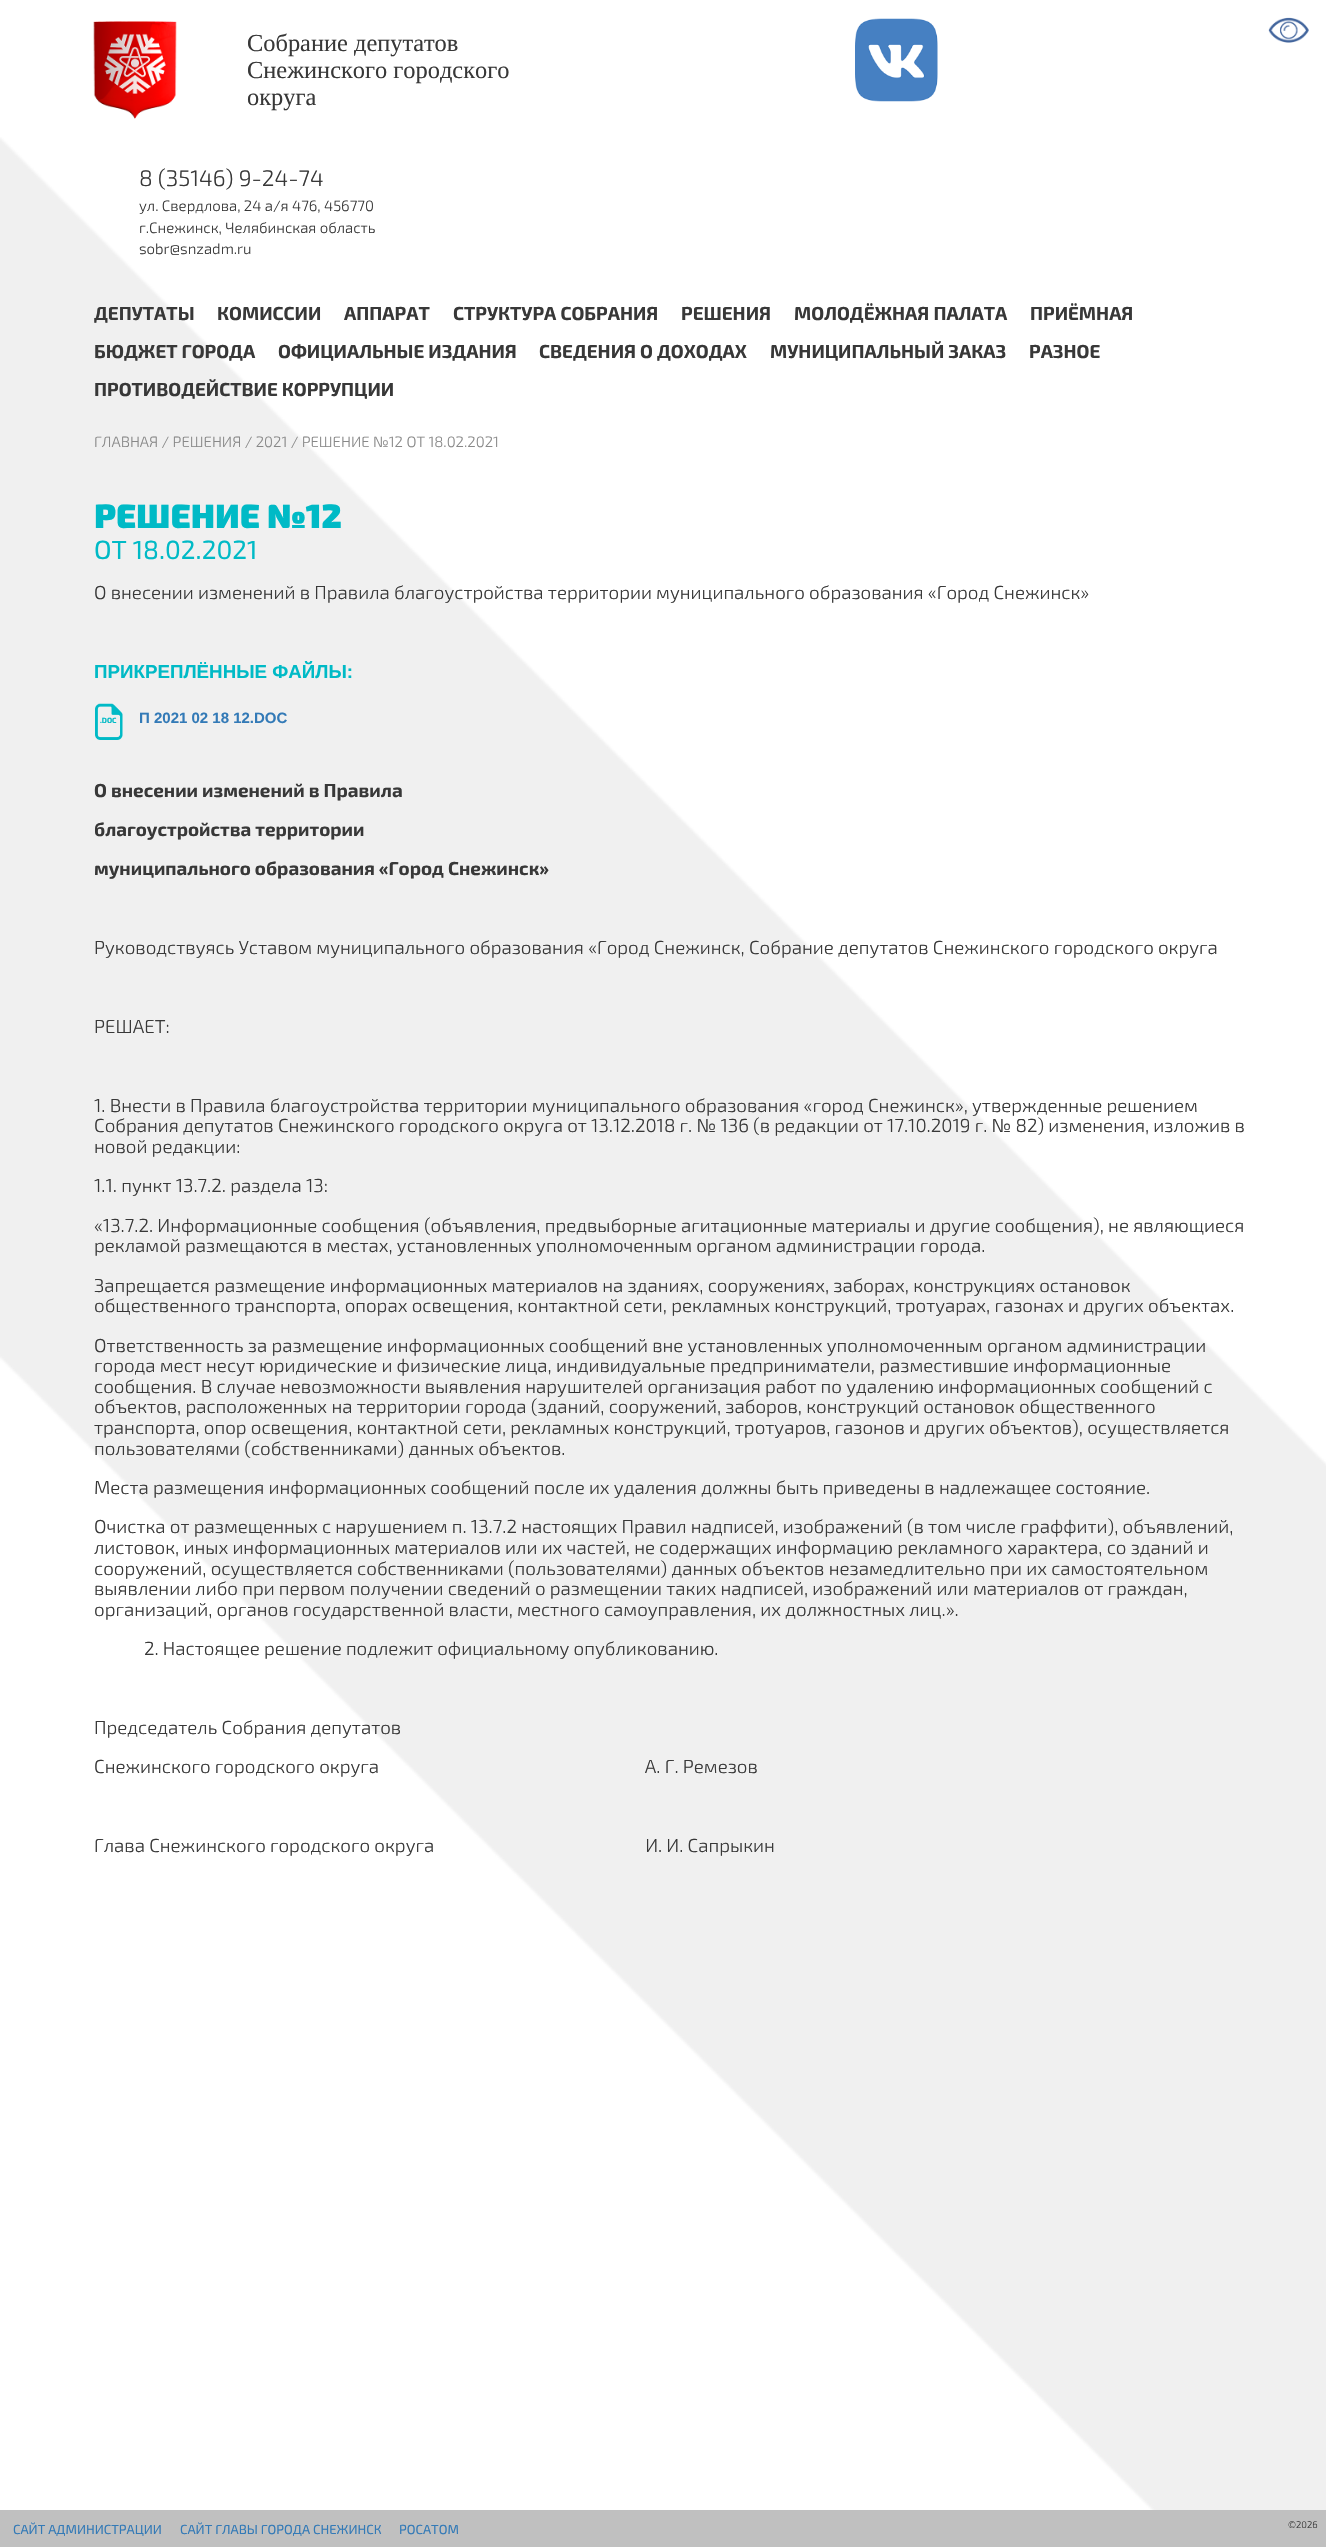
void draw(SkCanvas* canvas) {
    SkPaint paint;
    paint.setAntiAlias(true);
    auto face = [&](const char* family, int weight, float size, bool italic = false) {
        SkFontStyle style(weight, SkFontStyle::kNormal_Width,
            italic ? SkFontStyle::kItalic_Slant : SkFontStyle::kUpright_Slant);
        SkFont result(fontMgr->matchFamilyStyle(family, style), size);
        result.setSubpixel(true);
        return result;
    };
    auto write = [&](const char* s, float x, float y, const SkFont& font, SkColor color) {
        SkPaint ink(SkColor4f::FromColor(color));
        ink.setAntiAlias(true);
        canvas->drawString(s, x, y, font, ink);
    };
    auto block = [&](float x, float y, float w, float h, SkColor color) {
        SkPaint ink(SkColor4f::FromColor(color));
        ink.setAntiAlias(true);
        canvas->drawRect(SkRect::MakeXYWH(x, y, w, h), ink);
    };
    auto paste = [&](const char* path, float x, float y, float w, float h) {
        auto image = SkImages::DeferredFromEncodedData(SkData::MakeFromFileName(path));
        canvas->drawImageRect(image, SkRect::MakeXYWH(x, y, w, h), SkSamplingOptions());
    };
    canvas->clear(SK_ColorWHITE);
    paste("pic1.png", 0, 137, 1326, 2373);
    paste("pic2.png", 1268, 17, 41, 26);
    paste("pic3.png", 93, 21, 84, 98);
    auto kFont1 = face("Liberation Serif", 400, 24.4f);
    write("Собрание депутатов", 247, 51, kFont1, SkColorSetRGB(56, 56, 56));
    write("Снежинского городского", 247, 78, kFont1, SkColorSetRGB(56, 56, 56));
    write("округа", 247, 105, kFont1, SkColorSetRGB(56, 56, 56));
    paste("pic4.png", 855, 18, 83, 84);
    auto kFont2 = face("Exo 2", 300, 22.5f);
    write("8 (35146) 9-24-74", 139, 186, kFont2, SkColorSetRGB(56, 56, 56));
    auto kFont3 = face("Exo 2", 300, 15);
    write("ул. Свердлова, 24 а/я 476, 456770", 139, 211, kFont3, SkColorSetRGB(56, 56, 56));
    write("г.Снежинск, Челябинская область", 139, 233, kFont3, SkColorSetRGB(56, 56, 56));
    write("sobr@snzadm.ru", 139, 254, kFont3, SkColorSetRGB(56, 56, 56));
    auto kFont4 = face("Exo 2", 700, 18.75f);
    write("ДЕПУТАТЫ", 94, 320, kFont4, SkColorSetRGB(56, 56, 56));
    write("КОМИССИИ", 217, 320, kFont4, SkColorSetRGB(56, 56, 56));
    write("АППАРАТ", 344, 320, kFont4, SkColorSetRGB(56, 56, 56));
    write("СТРУКТУРА СОБРАНИЯ", 453, 320, kFont4, SkColorSetRGB(56, 56, 56));
    write("РЕШЕНИЯ", 681, 320, kFont4, SkColorSetRGB(56, 56, 56));
    write("МОЛОДЁЖНАЯ ПАЛАТА", 794, 320, kFont4, SkColorSetRGB(56, 56, 56));
    write("ПРИЁМНАЯ", 1030, 320, kFont4, SkColorSetRGB(56, 56, 56));
    write("БЮДЖЕТ ГОРОДА", 94, 358, kFont4, SkColorSetRGB(56, 56, 56));
    write("ОФИЦИАЛЬНЫЕ ИЗДАНИЯ", 278, 358, kFont4, SkColorSetRGB(56, 56, 56));
    write("СВЕДЕНИЯ О ДОХОДАХ", 539, 358, kFont4, SkColorSetRGB(56, 56, 56));
    write("МУНИЦИПАЛЬНЫЙ ЗАКАЗ", 770, 358, kFont4, SkColorSetRGB(56, 56, 56));
    write("РАЗНОЕ", 1029, 358, kFont4, SkColorSetRGB(56, 56, 56));
    write("ПРОТИВОДЕЙСТВИЕ КОРРУПЦИИ", 94, 396, kFont4, SkColorSetRGB(56, 56, 56));
    write("ГЛАВНАЯ / РЕШЕНИЯ / 2021 / РЕШЕНИЕ №12 ОТ 18.02.2021", 94, 447, kFont3, SkColorSetRGB(136, 136, 136));
    auto kFont5 = face("Exo 2", 900, 33.75f);
    write("РЕШЕНИЕ №12", 94, 528, kFont5, SkColorSetRGB(0, 186, 198));
    auto kFont6 = face("Exo 2", 400, 26.25f);
    write("ОТ 18.02.2021", 94, 559, kFont6, SkColorSetRGB(0, 186, 198));
    auto kFont7 = face("Exo 2", 300, 18.75f);
    write("О внесении изменений в Правила благоустройства территории муниципального образования «Город Снежинск»", 94, 599, kFont7, SkColorSetRGB(56, 56, 56));
    auto kFont8 = face("Liberation Sans", 700, 18.75f);
    write("ПРИКРЕПЛЁННЫЕ ФАЙЛЫ:", 94, 678, kFont8, SkColorSetRGB(0, 186, 198));
    paste("pic5.png", 95, 703, 28, 37);
    auto kFont9 = face("Exo 2", 700, 7.5f);
    write(".DOC", 100, 723, kFont9, SkColorSetRGB(0, 186, 198));
    auto kFont10 = face("Liberation Sans", 700, 15);
    write("П 2021 02 18 12.DOC", 139, 723, kFont10, SkColorSetRGB(51, 122, 183));
    write("О внесении изменений в Правила", 94, 797, kFont4, SkColorSetRGB(56, 56, 56));
    write("благоустройства территории", 94, 836, kFont4, SkColorSetRGB(56, 56, 56));
    write("муниципального образования «Город Снежинск»", 94, 875, kFont4, SkColorSetRGB(56, 56, 56));
    write("Руководствуясь Уставом муниципального образования «Город Снежинск, Собрание депутатов Снежинского городского округа", 94, 954, kFont7, SkColorSetRGB(56, 56, 56));
    write("РЕШАЕТ:", 94, 1033, kFont7, SkColorSetRGB(56, 56, 56));
    write("1. Внести в Правила благоустройства территории муниципального образования «город Снежинск», утвержденные решением", 94, 1112, kFont7, SkColorSetRGB(56, 56, 56));
    write("Собрания депутатов Снежинского городского округа от 13.12.2018 г. № 136 (в редакции от 17.10.2019 г. № 82) изменения, изложив в", 94, 1132, kFont7, SkColorSetRGB(56, 56, 56));
    write("новой редакции:", 94, 1153, kFont7, SkColorSetRGB(56, 56, 56));
    write("1.1. пункт 13.7.2. раздела 13:", 94, 1192, kFont7, SkColorSetRGB(56, 56, 56));
    write("«13.7.2. Информационные сообщения (объявления, предвыборные агитационные материалы и другие сообщения), не являющиеся", 94, 1232, kFont7, SkColorSetRGB(56, 56, 56));
    write("рекламой размещаются в местах, установленных уполномоченным органом администрации города.", 94, 1252, kFont7, SkColorSetRGB(56, 56, 56));
    write("Запрещается размещение информационных материалов на зданиях, сооружениях, заборах, конструкциях остановок", 94, 1292, kFont7, SkColorSetRGB(56, 56, 56));
    write("общественного транспорта, опорах освещения, контактной сети, рекламных конструкций, тротуарах, газонах и других объектах.", 94, 1312, kFont7, SkColorSetRGB(56, 56, 56));
    write("Ответственность за размещение информационных сообщений вне установленных уполномоченным органом администрации", 94, 1352, kFont7, SkColorSetRGB(56, 56, 56));
    write("города мест несут юридические и физические лица, индивидуальные предприниматели, разместившие информационные", 94, 1372, kFont7, SkColorSetRGB(56, 56, 56));
    write("сообщения. В случае невозможности выявления нарушителей организация работ по удалению информационных сообщений с", 94, 1393, kFont7, SkColorSetRGB(56, 56, 56));
    write("объектов, расположенных на территории города (зданий, сооружений, заборов, конструкций остановок общественного", 94, 1413, kFont7, SkColorSetRGB(56, 56, 56));
    write("транспорта, опор освещения, контактной сети, рекламных конструкций, тротуаров, газонов и других объектов), осуществляется", 94, 1434, kFont7, SkColorSetRGB(56, 56, 56));
    write("пользователями (собственниками) данных объектов.", 94, 1455, kFont7, SkColorSetRGB(56, 56, 56));
    write("Места размещения информационных сообщений после их удаления должны быть приведены в надлежащее состояние.", 94, 1494, kFont7, SkColorSetRGB(56, 56, 56));
    write("Очистка от размещенных с нарушением п. 13.7.2 настоящих Правил надписей, изображений (в том числе граффити), объявлений,", 94, 1533, kFont7, SkColorSetRGB(56, 56, 56));
    write("листовок, иных информационных материалов или их частей, не содержащих информацию рекламного характера, со зданий и", 94, 1554, kFont7, SkColorSetRGB(56, 56, 56));
    write("сооружений, осуществляется собственниками (пользователями) данных объектов незамедлительно при их самостоятельном", 94, 1575, kFont7, SkColorSetRGB(56, 56, 56));
    write("выявлении либо при первом получении сведений о размещении таких надписей, изображений или материалов от граждан,", 94, 1595, kFont7, SkColorSetRGB(56, 56, 56));
    write("организаций, органов государственной власти, местного самоуправления, их должностных лиц.».", 94, 1616, kFont7, SkColorSetRGB(56, 56, 56));
    write("2. Настоящее решение подлежит официальному опубликованию.", 144, 1655, kFont7, SkColorSetRGB(56, 56, 56));
    write("Председатель Собрания депутатов", 94, 1734, kFont7, SkColorSetRGB(56, 56, 56));
    write("Снежинского городского округа                                                               А. Г. Ремезов", 94, 1773, kFont7, SkColorSetRGB(56, 56, 56));
    write("Глава Снежинского городского округа                                                  И. И. Сапрыкин", 94, 1852, kFont7, SkColorSetRGB(56, 56, 56));
    block(0, 2510, 1326, 37, SkColorSetRGB(192, 192, 192));
    auto kFont11 = face("Exo 2", 400, 13.1f);
    write("САЙТ АДМИНИСТРАЦИИ", 13, 2534, kFont11, SkColorSetRGB(51, 122, 183));
    write("САЙТ ГЛАВЫ ГОРОДА СНЕЖИНСК", 180, 2534, kFont11, SkColorSetRGB(51, 122, 183));
    write("РОСАТОМ", 399, 2534, kFont11, SkColorSetRGB(51, 122, 183));
    auto kFont12 = face("Exo 2", 300, 9.5f);
    write("©2026", 1288, 2528, kFont12, SkColorSetRGB(56, 56, 56));
}
